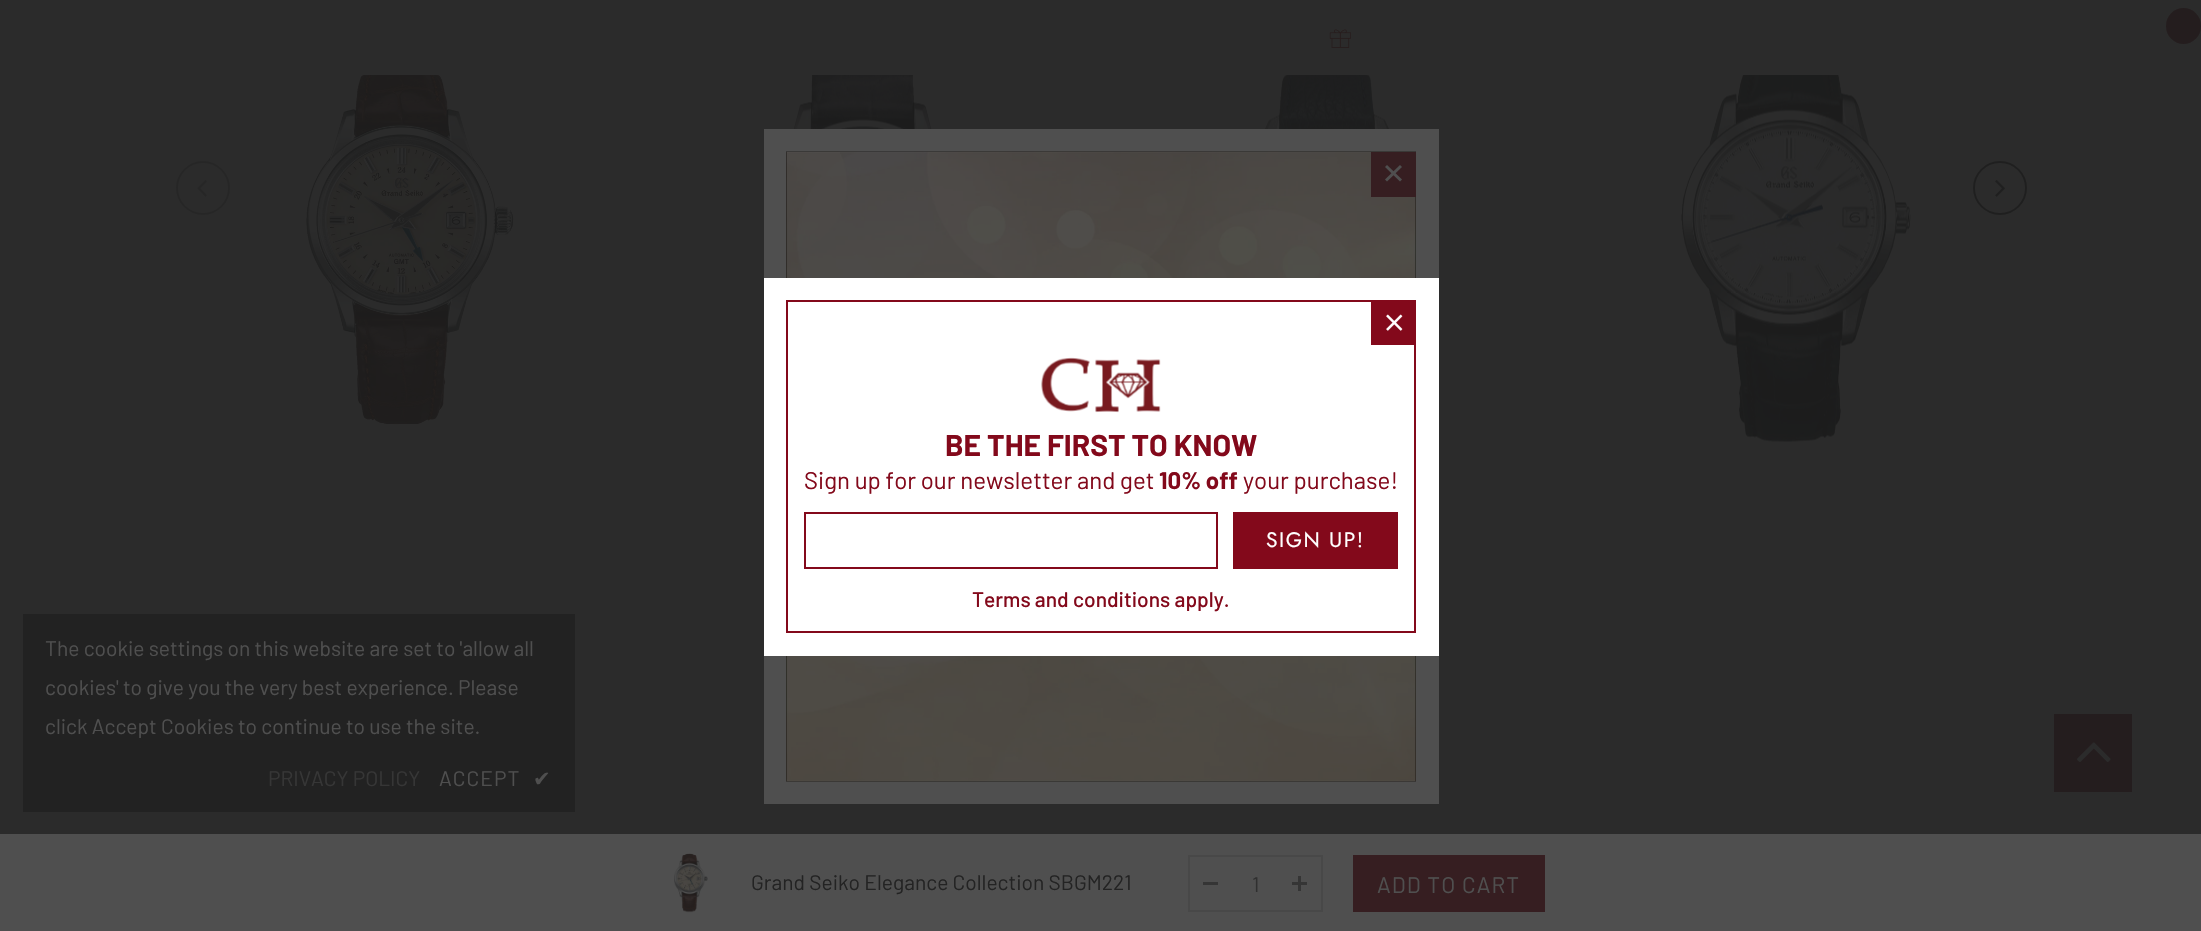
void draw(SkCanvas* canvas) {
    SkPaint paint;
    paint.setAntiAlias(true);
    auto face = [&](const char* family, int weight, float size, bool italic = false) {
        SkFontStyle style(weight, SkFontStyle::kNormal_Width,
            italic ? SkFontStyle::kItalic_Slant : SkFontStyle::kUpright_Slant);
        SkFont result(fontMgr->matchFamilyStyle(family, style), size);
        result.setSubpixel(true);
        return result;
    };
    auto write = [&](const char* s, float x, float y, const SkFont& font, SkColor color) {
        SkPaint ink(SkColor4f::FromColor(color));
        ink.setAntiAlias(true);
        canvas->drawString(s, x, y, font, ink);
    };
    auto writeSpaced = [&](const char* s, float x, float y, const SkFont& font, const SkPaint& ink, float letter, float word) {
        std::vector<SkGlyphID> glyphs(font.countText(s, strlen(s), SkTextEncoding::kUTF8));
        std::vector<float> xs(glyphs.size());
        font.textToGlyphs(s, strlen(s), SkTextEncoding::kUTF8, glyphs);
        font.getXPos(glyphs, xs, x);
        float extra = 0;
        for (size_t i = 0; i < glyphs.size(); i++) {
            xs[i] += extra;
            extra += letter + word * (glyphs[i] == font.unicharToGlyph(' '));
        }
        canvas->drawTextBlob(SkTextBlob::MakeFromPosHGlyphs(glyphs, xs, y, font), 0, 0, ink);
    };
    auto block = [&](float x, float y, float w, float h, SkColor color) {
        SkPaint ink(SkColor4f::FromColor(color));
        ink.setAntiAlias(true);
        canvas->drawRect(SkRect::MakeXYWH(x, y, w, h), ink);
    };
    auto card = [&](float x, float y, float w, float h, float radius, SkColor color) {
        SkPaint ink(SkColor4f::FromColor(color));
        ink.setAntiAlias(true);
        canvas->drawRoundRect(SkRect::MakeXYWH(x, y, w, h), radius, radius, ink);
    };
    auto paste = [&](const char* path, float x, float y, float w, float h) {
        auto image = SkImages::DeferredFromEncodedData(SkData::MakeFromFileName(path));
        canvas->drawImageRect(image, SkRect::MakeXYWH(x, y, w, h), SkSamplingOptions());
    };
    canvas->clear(SkColorSetRGB(43, 43, 43));
    paste("pic1.png", 1329, 29, 22, 19);
    card(2166, 8, 35, 36, 17.5f, SkColorSetRGB(36, 29, 30));
    block(764, 129, 675, 675, SkColorSetRGB(79, 79, 79));
    paste("pic2.png", 786, 151, 630, 631);
    block(1371, 152, 45, 45, SkColorSetRGB(54, 30, 33));
    paint.setColor(SkColorSetRGB(79, 79, 79));
    canvas->drawPath(SkPathBuilder().moveTo(1387, 165).lineTo(1402, 179.5f).lineTo(1400, 181.5f).lineTo(1385, 167).close().detach(), paint);
    canvas->drawPath(SkPathBuilder().moveTo(1385, 179.5f).lineTo(1400, 165).lineTo(1402, 167).lineTo(1387, 181.5f).close().detach(), paint);
    block(764, 278, 675, 378, SK_ColorWHITE);
    paint.setStyle(SkPaint::kStroke_Style);
    paint.setStrokeWidth(2);
    paint.setColor(SkColorSetRGB(131, 9, 27));
    canvas->drawRect(SkRect::MakeXYWH(787, 301, 628, 331), paint);
    block(1371, 302, 43, 43, SkColorSetRGB(131, 9, 27));
    paste("pic3.png", 1386, 314, 17, 17);
    paste("pic4.png", 1041, 357, 120, 56);
    auto kFont1 = face("Barlow", 700, 30);
    write("BE THE FIRST TO KNOW", 945, 456, kFont1, SkColorSetRGB(131, 9, 27));
    auto kFont2 = face("Barlow", 400, 24);
    write("Sign up for our newsletter and get", 804, 489, kFont2, SkColorSetRGB(131, 9, 27));
    auto kFont3 = face("Barlow", 700, 24);
    write("10% off", 1159, 489, kFont3, SkColorSetRGB(131, 9, 27));
    write("your purchase!", 1243, 489, kFont2, SkColorSetRGB(131, 9, 27));
    canvas->drawRect(SkRect::MakeXYWH(805, 513, 412, 55), paint);
    block(1233, 512, 165, 57, SkColorSetRGB(131, 9, 27));
    auto kFont4 = face("Jost", 400, 21);
    paint.setStyle(SkPaint::kFill_Style);
    paint.setColor(SK_ColorWHITE);
    writeSpaced("SIGN UP!", 1266, 547, kFont4, paint, 1.5f, 0);
    auto kFont5 = face("Barlow", 500, 21);
    write("Terms and conditions apply.", 972, 607, kFont5, SkColorSetRGB(131, 9, 27));
    paint.setStyle(SkPaint::kStroke_Style);
    paint.setColor(SkColorSetRGB(38, 38, 38));
    canvas->drawCircle(203, 188, 26, paint);
    paste("pic5.png", 197, 180, 10, 17);
    paste("pic6.png", 305, 75, 209, 350);
    paste("pic7.png", 766, 75, 211, 54);
    paste("pic8.png", 1235, 75, 198, 54);
    paste("pic9.png", 1681, 75, 231, 367);
    paint.setColor(SkColorSetRGB(31, 31, 31));
    canvas->drawCircle(2000, 188, 26, paint);
    paste("pic10.png", 1995, 180, 10, 17);
    block(23, 614, 552, 198, SkColorSetARGB(230, 32, 32, 32));
    auto kFont6 = face("Barlow", 400, 21);
    write("The cookie settings on this website are set to 'allow all", 45, 656, kFont6, SkColorSetRGB(79, 79, 79));
    write("cookies' to give you the very best experience. Please", 45, 695, kFont6, SkColorSetRGB(79, 79, 79));
    write("click Accept Cookies to continue to use the site.", 45, 734, kFont6, SkColorSetRGB(79, 79, 79));
    write("PRIVACY POLICY", 268, 786, kFont6, SkColorSetRGB(54, 54, 54));
    paint.setStyle(SkPaint::kFill_Style);
    paint.setColor(SkColorSetRGB(79, 79, 79));
    writeSpaced("ACCEPT", 439, 786, kFont6, paint, 1, 0);
    auto kFont7 = face("DejaVu Sans", 400, 21);
    writeSpaced("✔", 533, 786, kFont7, paint, 1, 0);
    block(0, 834, 2201, 97, SkColorSetRGB(79, 79, 79));
    paste("pic11.png", 674, 853, 34, 60);
    write("Grand Seiko Elegance Collection SBGM221", 751, 890, kFont6, SkColorSetRGB(35, 35, 35));
    paint.setStyle(SkPaint::kStroke_Style);
    paint.setColor(SkColorSetRGB(72, 72, 72));
    canvas->drawRect(SkRect::MakeXYWH(1189, 856, 133, 55), paint);
    block(1203, 882, 15, 3, SkColorSetRGB(53, 53, 53));
    write("1", 1252, 892, kFont6, SkColorSetRGB(48, 48, 48));
    block(1292, 882, 15, 3, SkColorSetRGB(53, 53, 53));
    block(1298, 876, 3, 15, SkColorSetRGB(53, 53, 53));
    block(1353, 855, 192, 57, SkColorSetRGB(54, 30, 33));
    auto kFont8 = face("Barlow", 400, 22.5f);
    paint.setStyle(SkPaint::kFill_Style);
    paint.setColor(SkColorSetRGB(79, 79, 79));
    writeSpaced("ADD TO CART", 1377, 893, kFont8, paint, 1.1f, 0);
    block(2054, 714, 78, 78, SkColorSetRGB(36, 29, 30));
    paste("pic12.png", 2077, 742, 34, 20);
}
